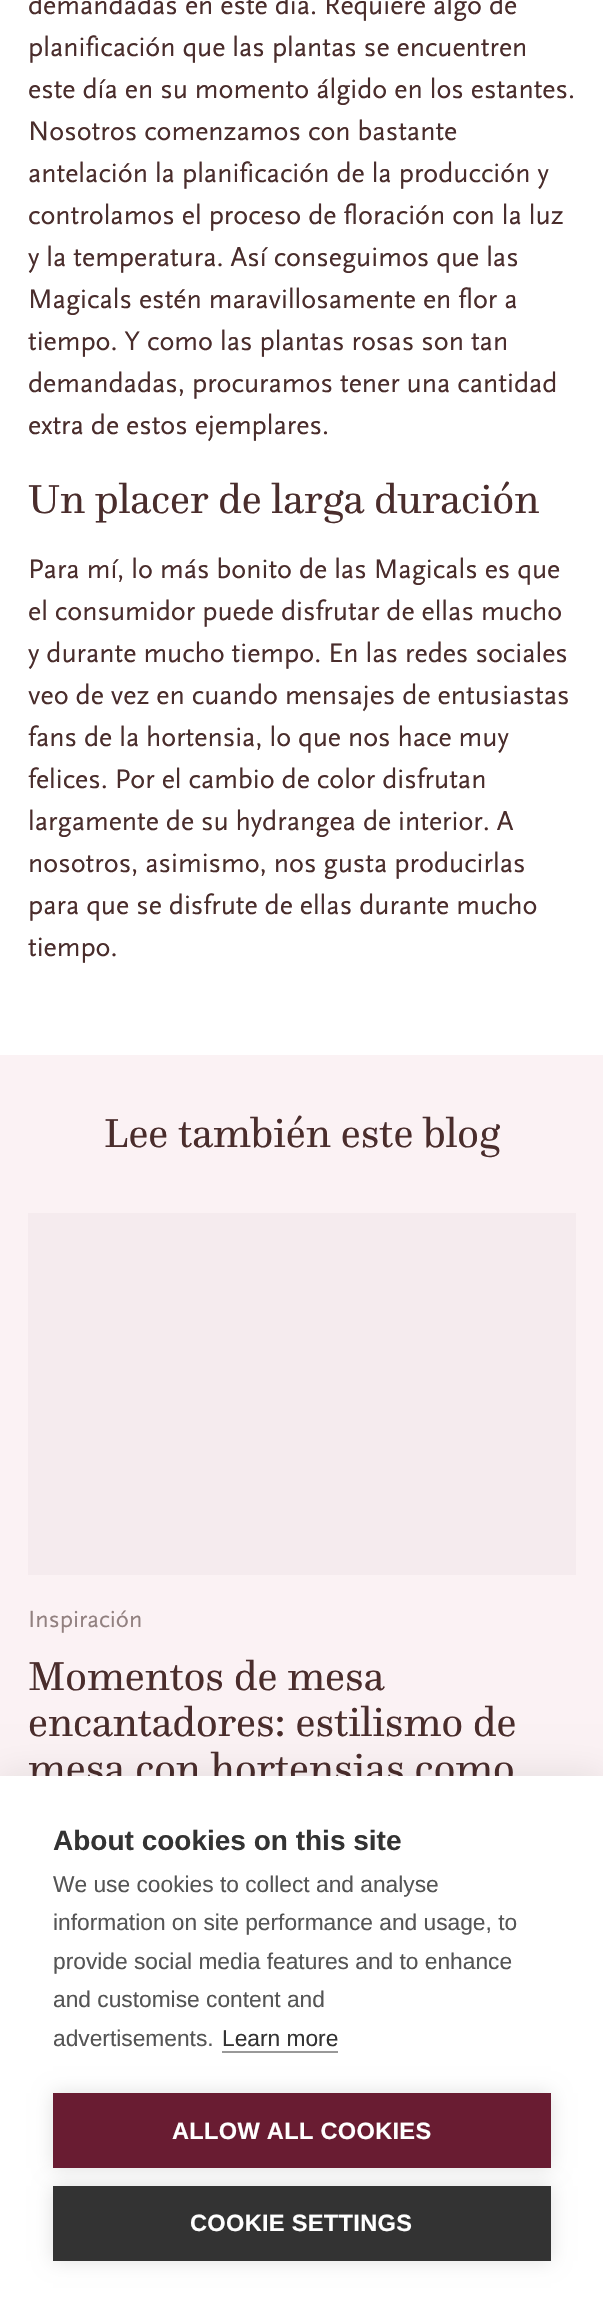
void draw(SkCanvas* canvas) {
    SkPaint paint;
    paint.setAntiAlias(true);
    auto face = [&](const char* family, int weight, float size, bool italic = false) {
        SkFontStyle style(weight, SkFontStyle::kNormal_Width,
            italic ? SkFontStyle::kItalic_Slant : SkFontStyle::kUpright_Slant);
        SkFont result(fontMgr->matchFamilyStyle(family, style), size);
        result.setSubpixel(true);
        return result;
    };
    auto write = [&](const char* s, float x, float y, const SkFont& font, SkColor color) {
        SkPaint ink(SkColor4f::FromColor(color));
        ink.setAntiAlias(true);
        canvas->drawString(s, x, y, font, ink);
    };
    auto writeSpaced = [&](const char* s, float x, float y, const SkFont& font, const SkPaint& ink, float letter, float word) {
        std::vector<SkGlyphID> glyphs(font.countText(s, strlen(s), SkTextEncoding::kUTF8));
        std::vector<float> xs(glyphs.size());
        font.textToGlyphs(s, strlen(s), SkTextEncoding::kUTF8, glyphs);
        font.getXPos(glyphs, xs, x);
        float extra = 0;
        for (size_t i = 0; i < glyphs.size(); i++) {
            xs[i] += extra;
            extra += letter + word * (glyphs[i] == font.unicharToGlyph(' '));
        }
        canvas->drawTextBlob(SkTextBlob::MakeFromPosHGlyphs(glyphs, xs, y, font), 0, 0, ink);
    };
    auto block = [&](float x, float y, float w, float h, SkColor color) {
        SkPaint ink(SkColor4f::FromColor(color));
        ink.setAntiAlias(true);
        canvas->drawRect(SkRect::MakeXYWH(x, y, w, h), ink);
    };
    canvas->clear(SK_ColorWHITE);
    auto kFont1 = face("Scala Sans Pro", 400, 28);
    write("demandadas en este día. Requiere algo de", 28, 14, kFont1, SkColorSetRGB(74, 45, 44));
    write("planificación que las plantas se encuentren", 28, 56, kFont1, SkColorSetRGB(74, 45, 44));
    write("este día en su momento álgido en los estantes.", 28, 98, kFont1, SkColorSetRGB(74, 45, 44));
    write("Nosotros comenzamos con bastante", 28, 140, kFont1, SkColorSetRGB(74, 45, 44));
    write("antelación la planificación de la producción y", 28, 182, kFont1, SkColorSetRGB(74, 45, 44));
    write("controlamos el proceso de floración con la luz", 28, 224, kFont1, SkColorSetRGB(74, 45, 44));
    write("y la temperatura. Así conseguimos que las", 28, 266, kFont1, SkColorSetRGB(74, 45, 44));
    write("Magicals estén maravillosamente en flor a", 28, 308, kFont1, SkColorSetRGB(74, 45, 44));
    write("tiempo. Y como las plantas rosas son tan", 28, 350, kFont1, SkColorSetRGB(74, 45, 44));
    write("demandadas, procuramos tener una cantidad", 28, 392, kFont1, SkColorSetRGB(74, 45, 44));
    write("extra de estos ejemplares.", 28, 434, kFont1, SkColorSetRGB(74, 45, 44));
    auto kFont2 = face("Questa", 400, 42);
    write("Un placer de larga duración", 28, 513, kFont2, SkColorSetRGB(74, 45, 44));
    write("Para mí, lo más bonito de las Magicals es que", 28, 578, kFont1, SkColorSetRGB(74, 45, 44));
    write("el consumidor puede disfrutar de ellas mucho", 28, 620, kFont1, SkColorSetRGB(74, 45, 44));
    write("y durante mucho tiempo. En las redes sociales", 28, 662, kFont1, SkColorSetRGB(74, 45, 44));
    write("veo de vez en cuando mensajes de entusiastas", 28, 704, kFont1, SkColorSetRGB(74, 45, 44));
    write("fans de la hortensia, lo que nos hace muy", 28, 746, kFont1, SkColorSetRGB(74, 45, 44));
    write("felices. Por el cambio de color disfrutan", 28, 788, kFont1, SkColorSetRGB(74, 45, 44));
    write("largamente de su hydrangea de interior. A", 28, 830, kFont1, SkColorSetRGB(74, 45, 44));
    write("nosotros, asimismo, nos gusta producirlas", 28, 872, kFont1, SkColorSetRGB(74, 45, 44));
    write("para que se disfrute de ellas durante mucho", 28, 914, kFont1, SkColorSetRGB(74, 45, 44));
    write("tiempo.", 28, 956, kFont1, SkColorSetRGB(74, 45, 44));
    block(0, 1055, 603, 721, SkColorSetRGB(251, 242, 244));
    write("Lee también este blog", 104, 1147, kFont2, SkColorSetRGB(74, 45, 44));
    block(28, 1213, 548, 362, SkColorSetRGB(245, 235, 238));
    auto kFont3 = face("Scala Sans Pro", 400, 24.5f);
    write("Inspiración", 28, 1627, kFont3, SkColorSetRGB(146, 129, 128));
    write("Momentos de mesa", 28, 1690, kFont2, SkColorSetRGB(74, 45, 44));
    write("encantadores: estilismo de", 28, 1736, kFont2, SkColorSetRGB(74, 45, 44));
    write("mesa con hortensias como", 28, 1782, kFont2, SkColorSetRGB(74, 45, 44));
    paint.setColor(SkColorSetARGB(26, 0, 0, 0));
    paint.setMaskFilter(SkMaskFilter::MakeBlur(kNormal_SkBlurStyle, 17.5f));
    canvas->drawRect(SkRect::MakeXYWH(0, 1776, 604, 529), paint);
    paint.setMaskFilter(nullptr);
    block(0, 1776, 603, 528, SK_ColorWHITE);
    auto kFont4 = face("Liberation Sans", 700, 28);
    write("About cookies on this site", 53, 1850, kFont4, SkColorSetRGB(51, 51, 51));
    auto kFont5 = face("Liberation Sans", 400, 22.75f);
    write("We use cookies to collect and analyse", 53, 1892, kFont5, SkColorSetRGB(85, 85, 85));
    write("information on site performance and usage, to", 53, 1930, kFont5, SkColorSetRGB(85, 85, 85));
    write("provide social media features and to enhance", 53, 1969, kFont5, SkColorSetRGB(85, 85, 85));
    write("and customise content and", 53, 2007, kFont5, SkColorSetRGB(85, 85, 85));
    write("advertisements.", 53, 2046, kFont5, SkColorSetRGB(85, 85, 85));
    write("Learn more", 222, 2046, kFont5, SkColorSetRGB(51, 51, 51));
    block(222, 2051, 116, 2, SkColorSetRGB(153, 153, 153));
    paint.setColor(SkColorSetARGB(31, 0, 0, 0));
    paint.setMaskFilter(SkMaskFilter::MakeBlur(kNormal_SkBlurStyle, 9));
    canvas->drawRect(SkRect::MakeXYWH(53, 2093, 498, 75), paint);
    paint.setMaskFilter(nullptr);
    block(53, 2093, 498, 75, SkColorSetRGB(105, 28, 50));
    auto kFont6 = face("Liberation Sans", 700, 23.6f);
    paint.setColor(SK_ColorWHITE);
    writeSpaced("ALLOW ALL COOKIES", 172, 2139, kFont6, paint, 0.3f, 0);
    paint.setColor(SkColorSetARGB(31, 0, 0, 0));
    paint.setMaskFilter(SkMaskFilter::MakeBlur(kNormal_SkBlurStyle, 9));
    canvas->drawRect(SkRect::MakeXYWH(53, 2186, 498, 75), paint);
    paint.setMaskFilter(nullptr);
    block(53, 2186, 498, 75, SkColorSetRGB(51, 51, 51));
    paint.setColor(SK_ColorWHITE);
    writeSpaced("COOKIE SETTINGS", 190, 2231, kFont6, paint, 0.3f, 0);
}
